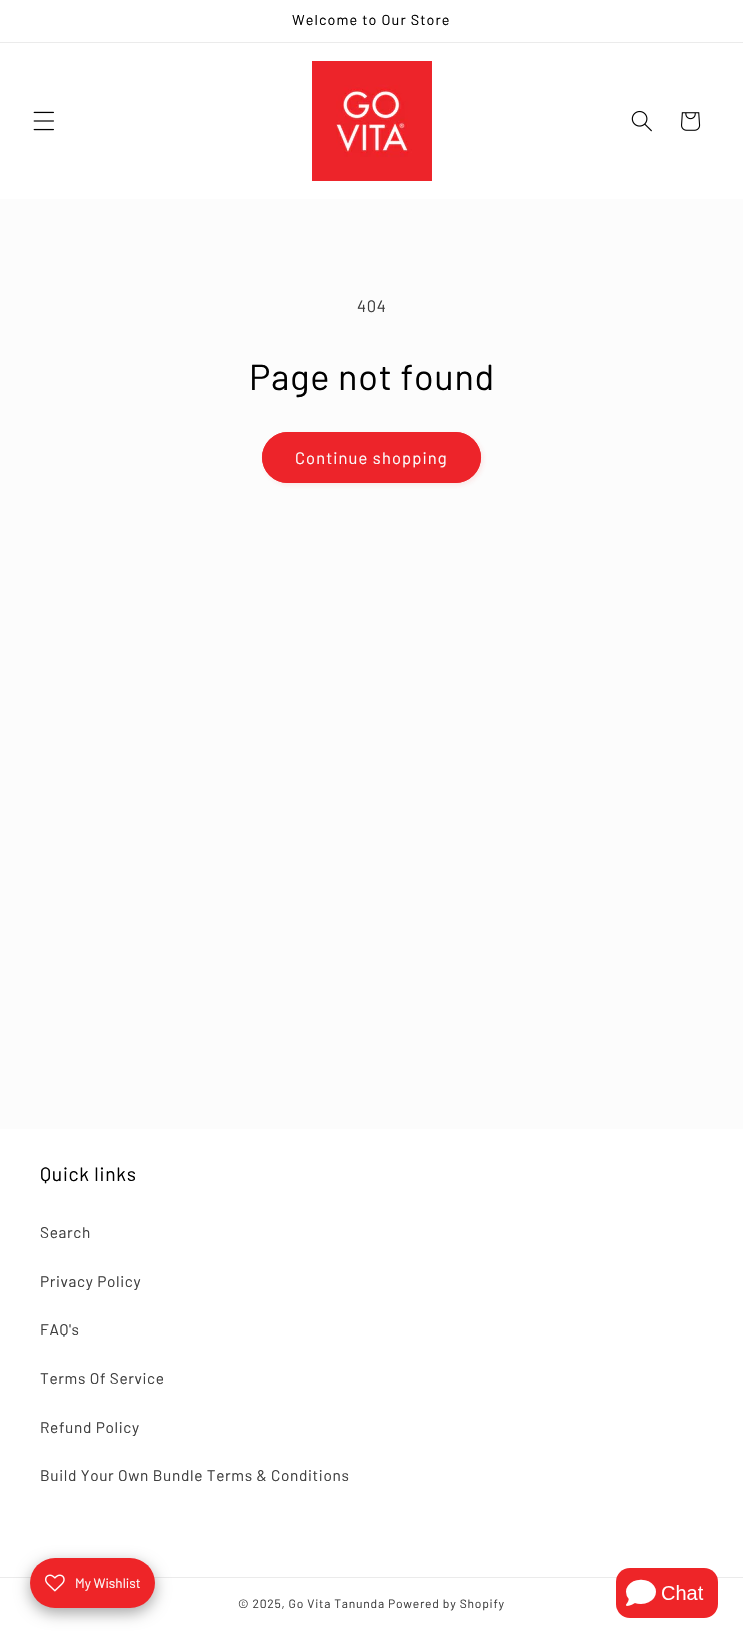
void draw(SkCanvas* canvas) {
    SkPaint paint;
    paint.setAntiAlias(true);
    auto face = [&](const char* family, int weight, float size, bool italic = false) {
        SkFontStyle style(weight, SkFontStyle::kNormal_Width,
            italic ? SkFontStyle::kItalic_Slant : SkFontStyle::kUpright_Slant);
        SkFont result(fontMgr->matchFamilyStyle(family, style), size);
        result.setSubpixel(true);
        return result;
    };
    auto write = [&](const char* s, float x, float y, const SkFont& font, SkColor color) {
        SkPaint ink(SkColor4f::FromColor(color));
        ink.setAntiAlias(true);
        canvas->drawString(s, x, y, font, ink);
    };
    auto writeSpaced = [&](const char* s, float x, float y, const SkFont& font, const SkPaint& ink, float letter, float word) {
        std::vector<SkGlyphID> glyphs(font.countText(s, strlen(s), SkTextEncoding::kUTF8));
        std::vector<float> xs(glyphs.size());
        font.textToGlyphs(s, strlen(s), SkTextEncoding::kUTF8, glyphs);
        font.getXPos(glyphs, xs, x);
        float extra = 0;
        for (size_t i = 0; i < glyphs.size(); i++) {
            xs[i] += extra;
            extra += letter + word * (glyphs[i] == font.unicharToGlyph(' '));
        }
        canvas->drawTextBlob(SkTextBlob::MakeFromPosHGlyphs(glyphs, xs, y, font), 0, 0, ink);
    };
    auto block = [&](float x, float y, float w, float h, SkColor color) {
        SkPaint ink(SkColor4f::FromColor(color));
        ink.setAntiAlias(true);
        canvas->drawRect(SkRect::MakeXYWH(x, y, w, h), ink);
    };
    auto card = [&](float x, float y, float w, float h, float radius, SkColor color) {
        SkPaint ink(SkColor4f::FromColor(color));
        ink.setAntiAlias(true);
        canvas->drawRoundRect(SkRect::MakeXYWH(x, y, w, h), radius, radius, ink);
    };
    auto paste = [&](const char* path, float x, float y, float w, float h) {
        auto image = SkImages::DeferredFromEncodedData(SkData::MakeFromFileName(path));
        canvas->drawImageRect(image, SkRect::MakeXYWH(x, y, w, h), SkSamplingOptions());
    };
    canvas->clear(SkColorSetRGB(252, 252, 252));
    block(0, 0, 743, 42, SK_ColorWHITE);
    block(0, 42, 743, 1, SkColorSetRGB(235, 235, 235));
    auto kFont1 = face("Barlow", 400, 14.4f);
    paint.setColor(SK_ColorBLACK);
    writeSpaced("Welcome to Our Store", 292, 25, kFont1, paint, 1.1f, 0);
    block(0, 43, 743, 156, SK_ColorWHITE);
    paste("pic1.png", 33, 111, 21, 20);
    paste("pic2.png", 312, 61, 120, 120);
    paste("pic3.png", 631, 110, 21, 22);
    paste("pic4.png", 681, 112, 20, 19);
    auto kFont2 = face("Barlow", 400, 16.5f);
    paint.setColor(SkColorSetRGB(63, 63, 63));
    writeSpaced("404", 357, 312, kFont2, paint, 0.65f, 0);
    auto kFont3 = face("Barlow", 400, 36);
    paint.setColor(SK_ColorBLACK);
    writeSpaced("Page not found", 249, 390, kFont3, paint, 0.75f, 0);
    paint.setColor(SkColorSetARGB(26, 237, 36, 42));
    paint.setMaskFilter(SkMaskFilter::MakeBlur(kNormal_SkBlurStyle, 2.5f));
    canvas->drawRoundRect(SkRect::MakeXYWH(264, 434, 219, 51), 25.5f, 25.5f, paint);
    paint.setMaskFilter(nullptr);
    card(262, 432, 219, 51, 25.5f, SkColorSetRGB(237, 36, 42));
    paint.setStyle(SkPaint::kStroke_Style);
    paint.setStrokeWidth(1);
    paint.setColor(SkColorSetRGB(237, 36, 42));
    canvas->drawRoundRect(SkRect::MakeXYWH(262.5f, 432.5f, 218, 50), 25, 25, paint);
    paint.setStyle(SkPaint::kFill_Style);
    paint.setColor(SkColorSetRGB(252, 252, 252));
    writeSpaced("Continue shopping", 295, 464, kFont2, paint, 1.1f, 0);
    block(0, 1129, 743, 509, SK_ColorWHITE);
    auto kFont4 = face("Barlow", 400, 19.25f);
    paint.setColor(SK_ColorBLACK);
    writeSpaced("Quick links", 40, 1181, kFont4, paint, 0.75f, 0);
    auto kFont5 = face("Barlow", 400, 15.4f);
    paint.setColor(SkColorSetRGB(63, 63, 63));
    writeSpaced("Search", 40, 1238, kFont5, paint, 0.65f, 0);
    writeSpaced("Privacy Policy", 40, 1287, kFont5, paint, 0.65f, 0);
    writeSpaced("FAQ's", 40, 1335, kFont5, paint, 0.65f, 0);
    writeSpaced("Terms Of Service", 40, 1384, kFont5, paint, 0.65f, 0);
    writeSpaced("Refund Policy", 40, 1433, kFont5, paint, 0.65f, 0);
    writeSpaced("Build Your Own Bundle Terms & Conditions", 40, 1481, kFont5, paint, 0.65f, 0);
    block(0, 1577, 743, 1, SkColorSetRGB(235, 235, 235));
    auto kFont6 = face("Barlow", 400, 12.1f);
    writeSpaced("© 2025, Go Vita Tanunda Powered by Shopify", 238, 1608, kFont6, paint, 0.75f, 0);
    paste("pic5.png", 616, 1568, 102, 50);
    paint.setColor(SkColorSetARGB(89, 0, 0, 0));
    paint.setMaskFilter(SkMaskFilter::MakeBlur(kNormal_SkBlurStyle, 7.5f));
    canvas->drawRoundRect(SkRect::MakeXYWH(30, 1563, 125, 50), 25, 25, paint);
    paint.setMaskFilter(nullptr);
    card(30, 1558, 125, 50, 25, SkColorSetRGB(238, 37, 40));
    paste("pic6.png", 45, 1574, 20, 18);
    auto kFont7 = face("Barlow", 400, 13.5f);
    write("My Wishlist", 75, 1588, kFont7, SkColorSetRGB(252, 252, 252));
}
